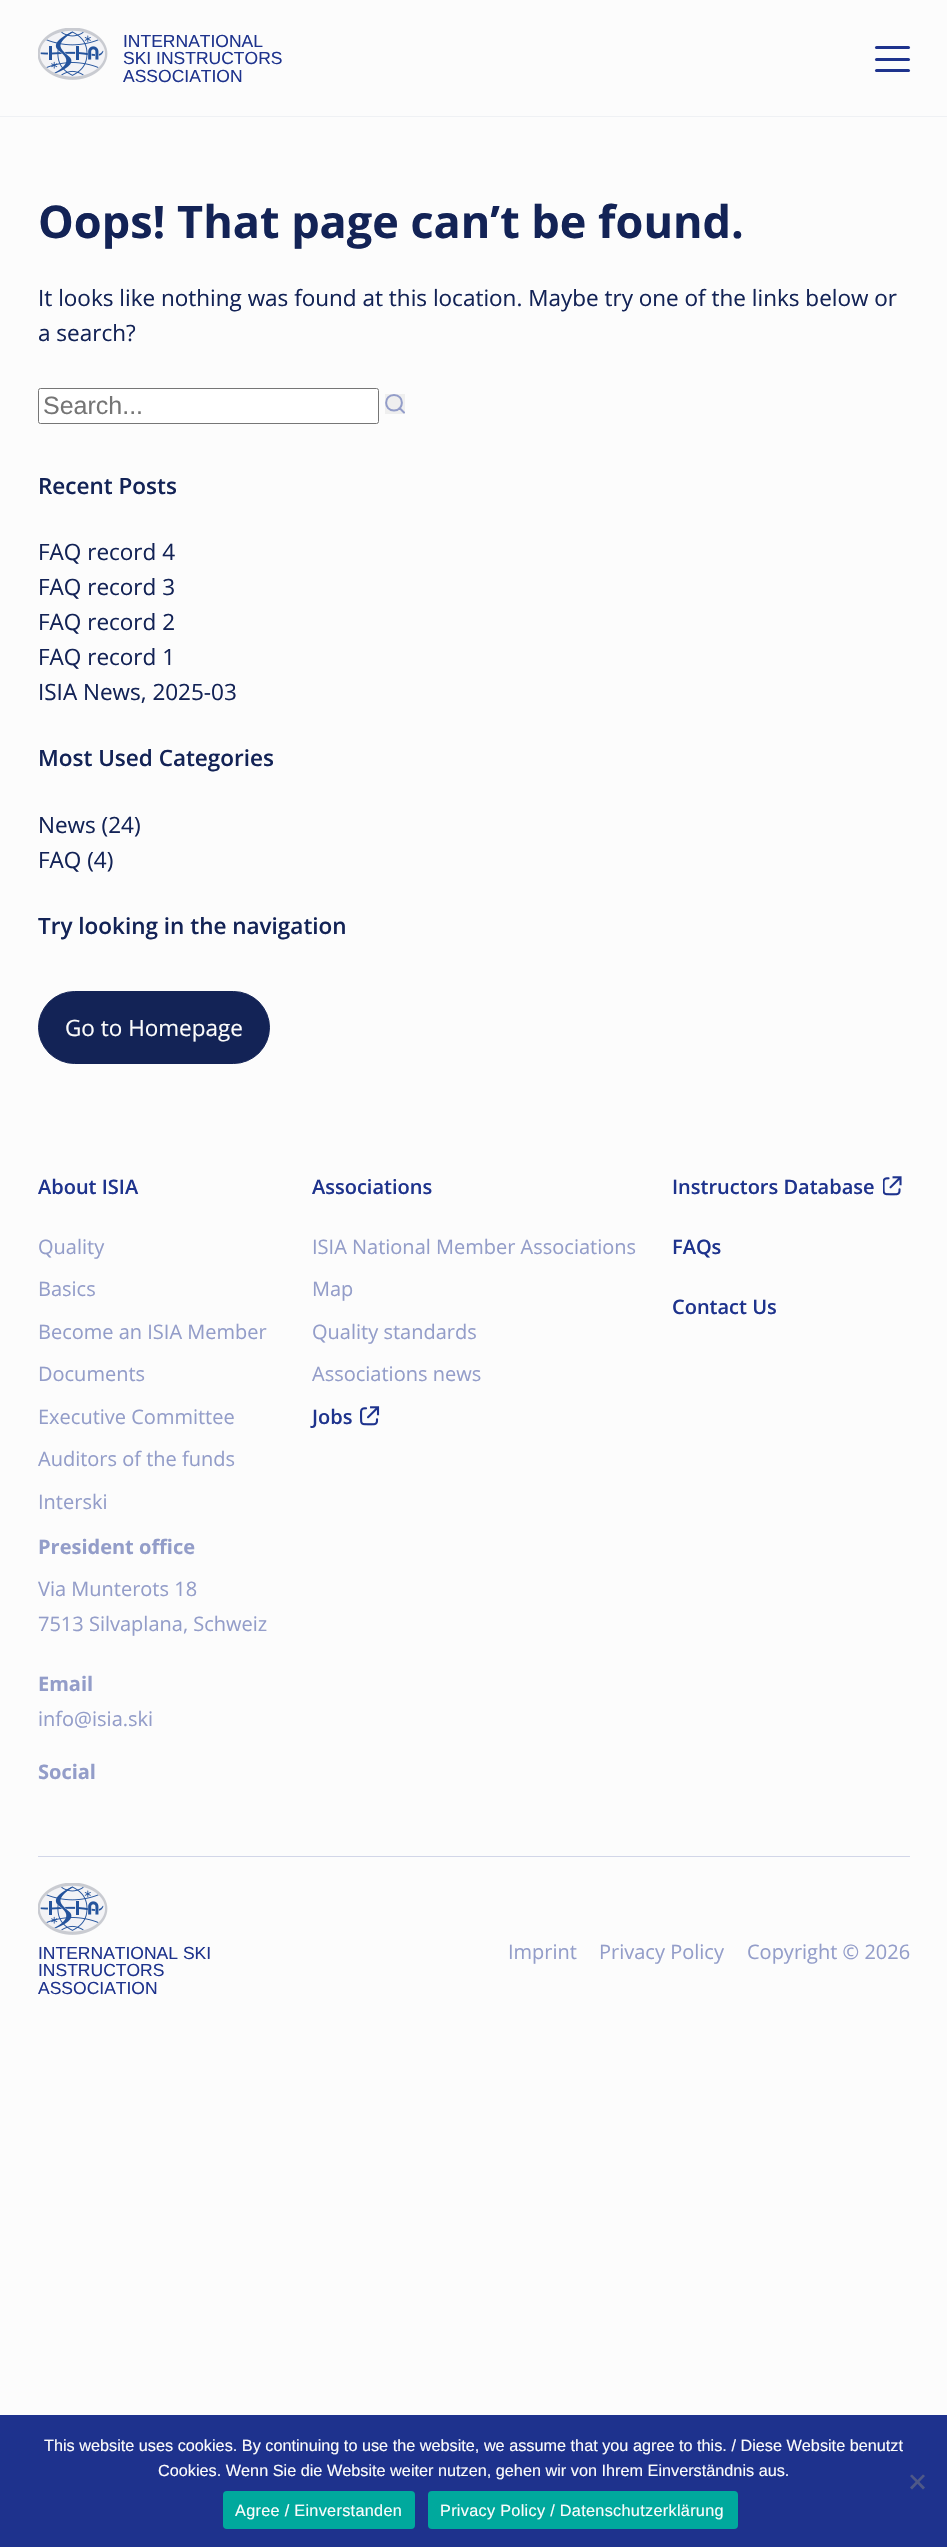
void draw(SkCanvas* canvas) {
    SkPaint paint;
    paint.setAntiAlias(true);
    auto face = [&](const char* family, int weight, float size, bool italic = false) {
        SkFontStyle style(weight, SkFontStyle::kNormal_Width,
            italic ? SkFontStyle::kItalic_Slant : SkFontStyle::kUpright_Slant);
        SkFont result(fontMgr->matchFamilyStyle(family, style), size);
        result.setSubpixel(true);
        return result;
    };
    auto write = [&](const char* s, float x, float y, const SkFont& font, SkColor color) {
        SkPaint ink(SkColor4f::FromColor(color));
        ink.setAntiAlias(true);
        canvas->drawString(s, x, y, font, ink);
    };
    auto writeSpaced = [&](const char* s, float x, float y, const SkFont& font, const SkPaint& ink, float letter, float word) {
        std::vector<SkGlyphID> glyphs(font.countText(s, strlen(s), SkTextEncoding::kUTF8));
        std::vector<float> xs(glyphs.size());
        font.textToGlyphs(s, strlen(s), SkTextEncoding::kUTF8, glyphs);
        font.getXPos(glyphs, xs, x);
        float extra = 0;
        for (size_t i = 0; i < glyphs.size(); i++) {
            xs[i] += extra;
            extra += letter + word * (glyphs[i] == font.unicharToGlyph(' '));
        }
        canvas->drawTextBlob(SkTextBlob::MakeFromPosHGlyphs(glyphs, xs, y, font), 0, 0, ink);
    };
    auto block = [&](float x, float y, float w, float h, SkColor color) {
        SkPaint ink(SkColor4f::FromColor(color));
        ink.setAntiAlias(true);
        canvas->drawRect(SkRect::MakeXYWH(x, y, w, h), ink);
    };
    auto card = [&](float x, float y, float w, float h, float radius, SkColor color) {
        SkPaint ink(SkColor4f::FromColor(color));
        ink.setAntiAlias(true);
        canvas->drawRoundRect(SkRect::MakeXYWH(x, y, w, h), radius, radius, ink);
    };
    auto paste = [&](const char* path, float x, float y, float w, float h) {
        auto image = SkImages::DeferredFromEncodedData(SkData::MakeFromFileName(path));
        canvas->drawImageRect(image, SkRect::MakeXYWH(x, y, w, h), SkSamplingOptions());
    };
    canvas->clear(SkColorSetRGB(252, 252, 252));
    block(0, 116, 947, 1, SkColorSetRGB(239, 241, 244));
    paste("pic1.png", 38, 28, 70, 52);
    auto kFont1 = face("Liberation Sans", 400, 17.5f);
    write("INTERNATIONAL", 123, 47, kFont1, SkColorSetRGB(30, 51, 141));
    write("SKI INSTRUCTORS", 123, 64, kFont1, SkColorSetRGB(30, 51, 141));
    write("ASSOCIATION", 123, 82, kFont1, SkColorSetRGB(30, 51, 141));
    card(875, 46, 35, 3, 1.5f, SkColorSetRGB(30, 51, 141));
    card(875, 58, 35, 3, 1.5f, SkColorSetRGB(30, 51, 141));
    card(875, 69, 35, 3, 1.5f, SkColorSetRGB(30, 51, 141));
    auto kFont2 = face("Open Sans", 700, 45);
    write("Oops! That page can’t be found.", 38, 238, kFont2, SkColorSetRGB(19, 35, 86));
    auto kFont3 = face("Open Sans", 400, 22.5f);
    write("It looks like nothing was found at this location. Maybe try one of the links below or", 38, 306, kFont3, SkColorSetRGB(19, 35, 86));
    write("a search?", 38, 341, kFont3, SkColorSetRGB(19, 35, 86));
    paint.setColor(SK_ColorWHITE);
    canvas->drawRoundRect(SkRect::MakeXYWH(38.5f, 388.5f, 340, 35), 2, 2, paint);
    paint.setStyle(SkPaint::kStroke_Style);
    paint.setStrokeWidth(1);
    paint.setColor(SkColorSetRGB(118, 118, 118));
    canvas->drawRoundRect(SkRect::MakeXYWH(38.5f, 388.5f, 340, 35), 2, 2, paint);
    auto kFont4 = face("Liberation Sans", 400, 25);
    write("Search...", 43, 414, kFont4, SkColorSetRGB(117, 117, 117));
    block(385, 394, 20, 20, SkColorSetRGB(239, 239, 239));
    paint.setStrokeWidth(2);
    paint.setStrokeCap(SkPaint::kRound_Cap);
    paint.setStrokeJoin(SkPaint::kRound_Join);
    paint.setColor(SkColorSetRGB(147, 157, 201));
    canvas->drawPath(SkPathBuilder().moveTo(394, 410.5f).cubicTo(404.5f, 410.5f, 404.5f, 395, 394, 395).cubicTo(383.5f, 395, 383.5f, 410.5f, 394, 410.5f).close().moveTo(404, 412.5f).lineTo(399.5f, 408).detach(), paint);
    auto kFont5 = face("Open Sans", 600, 22.5f);
    write("Recent Posts", 38, 494, kFont5, SkColorSetRGB(19, 35, 86));
    write("FAQ record 4", 38, 560, kFont3, SkColorSetRGB(19, 35, 86));
    write("FAQ record 3", 38, 595, kFont3, SkColorSetRGB(19, 35, 86));
    write("FAQ record 2", 38, 630, kFont3, SkColorSetRGB(19, 35, 86));
    write("FAQ record 1", 38, 665, kFont3, SkColorSetRGB(19, 35, 86));
    write("ISIA News, 2025-03", 38, 700, kFont3, SkColorSetRGB(19, 35, 86));
    write("Most Used Categories", 38, 766, kFont5, SkColorSetRGB(19, 35, 86));
    write("News (24)", 38, 833, kFont3, SkColorSetRGB(19, 35, 86));
    write("FAQ (4)", 38, 868, kFont3, SkColorSetRGB(19, 35, 86));
    write("Try looking in the navigation", 38, 934, kFont5, SkColorSetRGB(19, 35, 86));
    paint.setStyle(SkPaint::kFill_Style);
    paint.setColor(SkColorSetRGB(19, 35, 86));
    canvas->drawRoundRect(SkRect::MakeXYWH(38.5f, 991.5f, 231, 72), 36, 36, paint);
    paint.setStyle(SkPaint::kStroke_Style);
    paint.setStrokeWidth(1);
    paint.setStrokeCap(SkPaint::kButt_Cap);
    paint.setStrokeJoin(SkPaint::kMiter_Join);
    canvas->drawRoundRect(SkRect::MakeXYWH(38.5f, 991.5f, 231, 72), 36, 36, paint);
    write("Go to Homepage", 65, 1036, kFont3, SkColorSetRGB(252, 252, 252));
    auto kFont6 = face("Open Sans", 600, 20);
    write("About ISIA", 38, 1194, kFont6, SkColorSetRGB(30, 51, 141));
    auto kFont7 = face("Open Sans", 400, 20);
    write("Quality", 38, 1254, kFont7, SkColorSetRGB(147, 157, 201));
    write("Basics", 38, 1296, kFont7, SkColorSetRGB(147, 157, 201));
    write("Become an ISIA Member", 38, 1339, kFont7, SkColorSetRGB(147, 157, 201));
    write("Documents", 38, 1381, kFont7, SkColorSetRGB(147, 157, 201));
    write("Executive Committee", 38, 1424, kFont7, SkColorSetRGB(147, 157, 201));
    write("Auditors of the funds", 38, 1466, kFont7, SkColorSetRGB(147, 157, 201));
    write("Interski", 38, 1509, kFont7, SkColorSetRGB(147, 157, 201));
    write("Associations", 312, 1194, kFont6, SkColorSetRGB(30, 51, 141));
    write("ISIA National Member Associations", 312, 1254, kFont7, SkColorSetRGB(147, 157, 201));
    write("Map", 312, 1296, kFont7, SkColorSetRGB(147, 157, 201));
    write("Quality standards", 312, 1339, kFont7, SkColorSetRGB(147, 157, 201));
    write("Associations news", 312, 1381, kFont7, SkColorSetRGB(147, 157, 201));
    write("Jobs", 312, 1424, kFont6, SkColorSetRGB(30, 51, 141));
    paste("pic2.png", 360, 1406, 20, 20);
    write("Instructors Database", 672, 1194, kFont6, SkColorSetRGB(30, 51, 141));
    paste("pic3.png", 883, 1176, 19, 20);
    write("FAQs", 672, 1254, kFont6, SkColorSetRGB(30, 51, 141));
    write("Contact Us", 672, 1314, kFont6, SkColorSetRGB(30, 51, 141));
    auto kFont8 = face("Open Sans", 700, 20);
    write("President office", 38, 1554, kFont8, SkColorSetRGB(147, 157, 201));
    write("Via Munterots 18", 38, 1596, kFont7, SkColorSetRGB(147, 157, 201));
    write("7513 Silvaplana, Schweiz", 38, 1631, kFont7, SkColorSetRGB(147, 157, 201));
    write("Email", 38, 1691, kFont8, SkColorSetRGB(147, 157, 201));
    write("info@isia.ski", 38, 1726, kFont7, SkColorSetRGB(147, 157, 201));
    write("Social", 38, 1779, kFont8, SkColorSetRGB(147, 157, 201));
    block(38, 1856, 872, 1, SkColorSetRGB(210, 214, 232));
    paste("pic1.png", 38, 1883, 70, 52);
    write("INTERNATIONAL SKI", 38, 1959, kFont1, SkColorSetRGB(30, 51, 141));
    write("INSTRUCTORS", 38, 1976, kFont1, SkColorSetRGB(30, 51, 141));
    write("ASSOCIATION", 38, 1994, kFont1, SkColorSetRGB(30, 51, 141));
    write("Imprint", 508, 1959, kFont7, SkColorSetRGB(147, 157, 201));
    write("Privacy Policy", 599, 1959, kFont7, SkColorSetRGB(147, 157, 201));
    write("Copyright © 2026", 747, 1959, kFont7, SkColorSetRGB(147, 157, 201));
    block(0, 2415, 947, 132, SkColorSetRGB(30, 50, 141));
    auto kFont9 = face("Liberation Sans", 400, 16.25f);
    write("This website uses cookies. By continuing to use the website, we assume that you agree to this. / Diese Website benutzt", 44, 2451, kFont9, SkColorSetRGB(252, 252, 252));
    write("Cookies. Wenn Sie die Website weiter nutzen, gehen wir von Ihrem Einverständnis aus.", 158, 2476, kFont9, SkColorSetRGB(252, 252, 252));
    paint.setStyle(SkPaint::kFill_Style);
    paint.setColor(SkColorSetRGB(79, 89, 135));
    canvas->drawPath(SkPathBuilder().moveTo(923, 2474.5f).lineTo(925, 2476).lineTo(912, 2489.5f).lineTo(910, 2487.5f).close().detach(), paint);
    canvas->drawPath(SkPathBuilder().moveTo(910, 2476).lineTo(912, 2474.5f).lineTo(925, 2487.5f).lineTo(923, 2489.5f).close().detach(), paint);
    card(223, 2491, 192, 38, 4, SkColorSetRGB(0, 169, 157));
    paint.setColor(SkColorSetRGB(252, 252, 252));
    writeSpaced("Agree / Einverstanden", 235, 2516, kFont9, paint, 0.3f, 0);
    card(428, 2491, 310, 38, 4, SkColorSetRGB(0, 169, 157));
    writeSpaced("Privacy Policy / Datenschutzerklärung", 440, 2516, kFont9, paint, 0.3f, 0);
}
